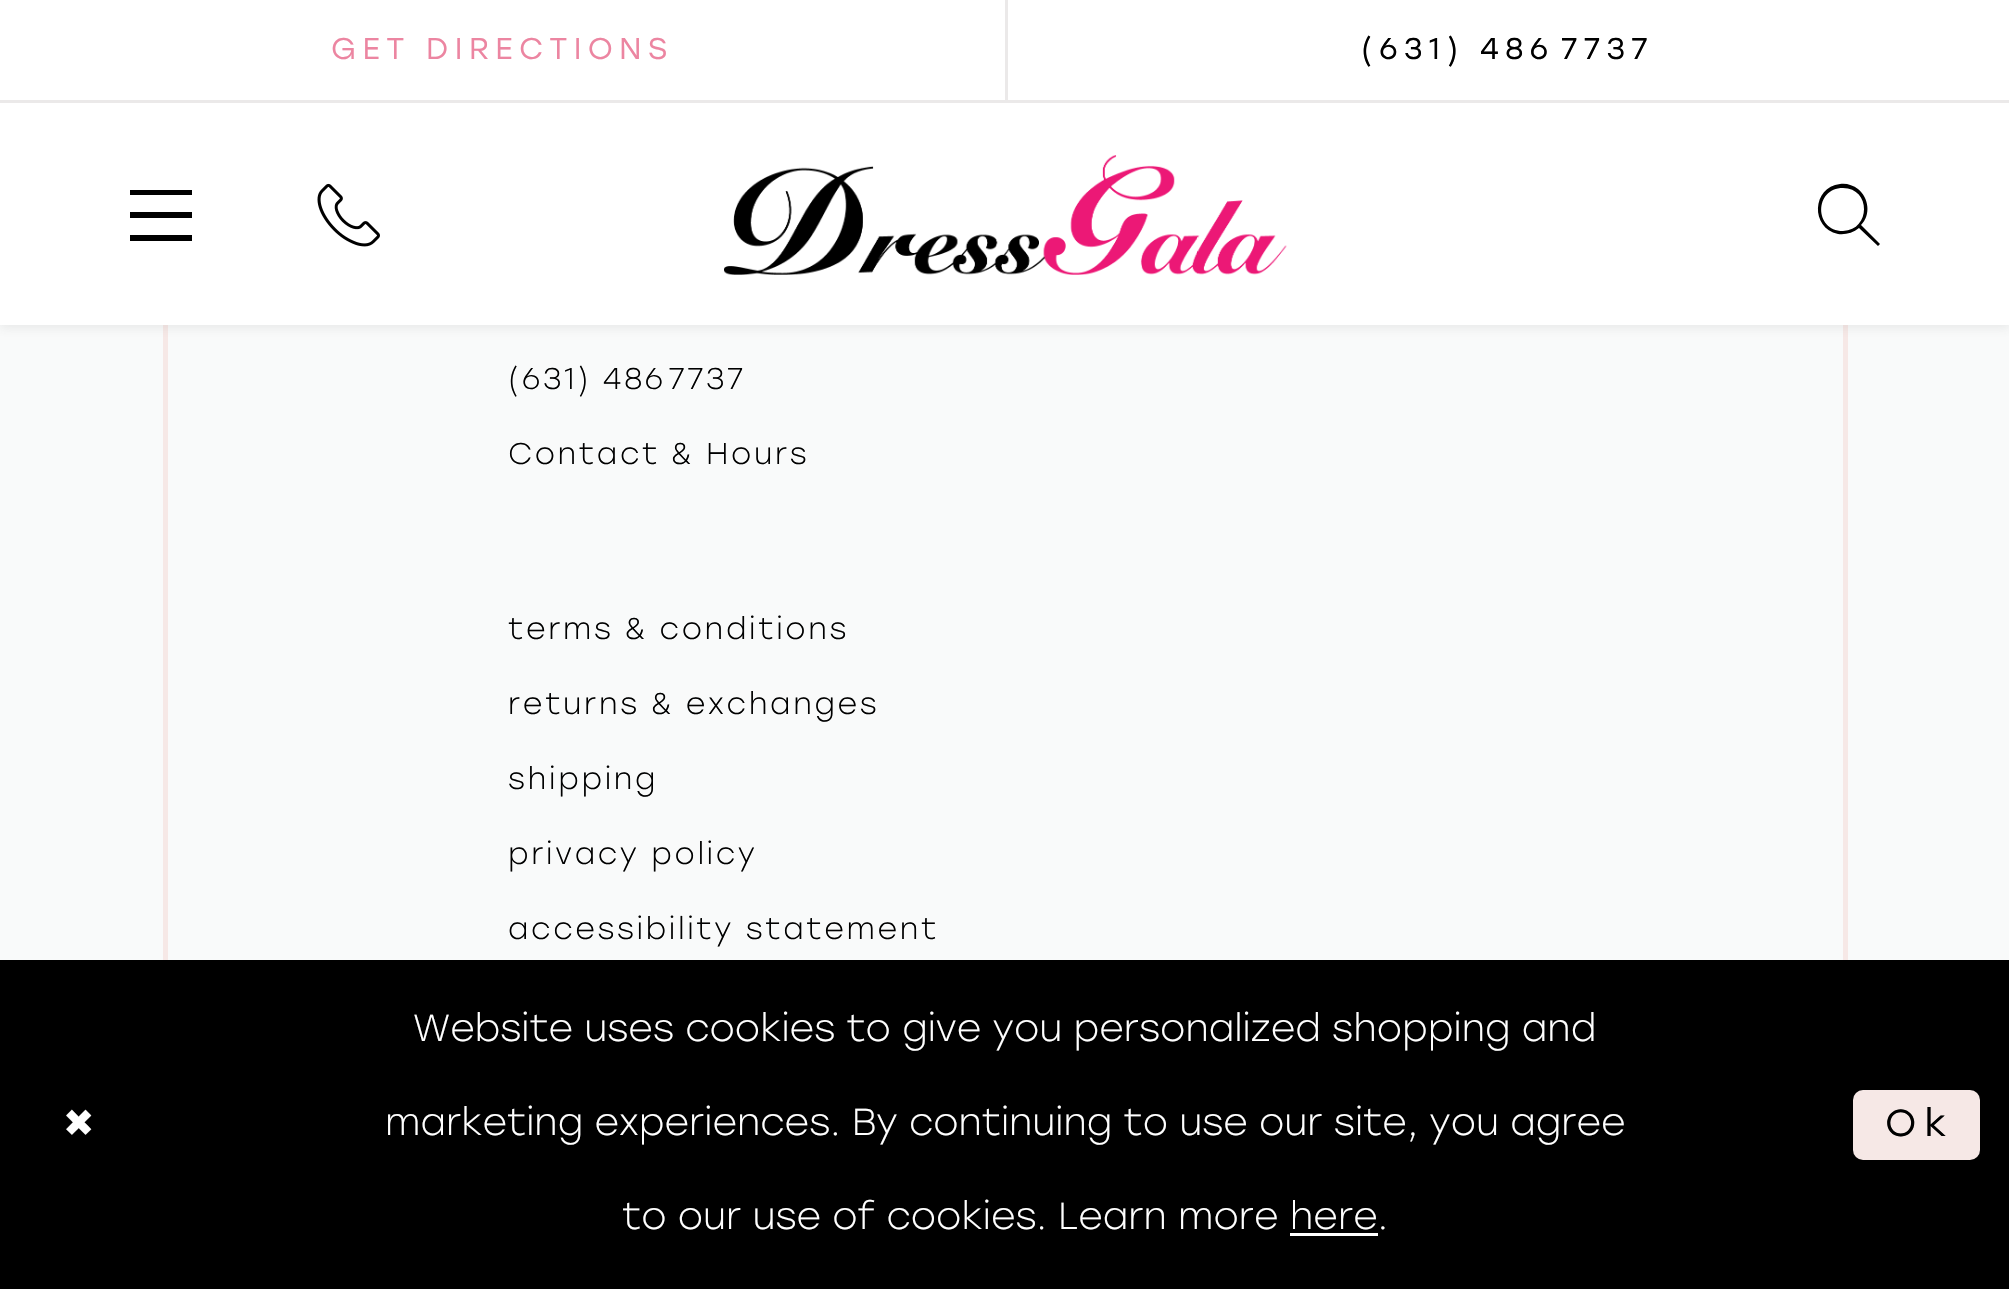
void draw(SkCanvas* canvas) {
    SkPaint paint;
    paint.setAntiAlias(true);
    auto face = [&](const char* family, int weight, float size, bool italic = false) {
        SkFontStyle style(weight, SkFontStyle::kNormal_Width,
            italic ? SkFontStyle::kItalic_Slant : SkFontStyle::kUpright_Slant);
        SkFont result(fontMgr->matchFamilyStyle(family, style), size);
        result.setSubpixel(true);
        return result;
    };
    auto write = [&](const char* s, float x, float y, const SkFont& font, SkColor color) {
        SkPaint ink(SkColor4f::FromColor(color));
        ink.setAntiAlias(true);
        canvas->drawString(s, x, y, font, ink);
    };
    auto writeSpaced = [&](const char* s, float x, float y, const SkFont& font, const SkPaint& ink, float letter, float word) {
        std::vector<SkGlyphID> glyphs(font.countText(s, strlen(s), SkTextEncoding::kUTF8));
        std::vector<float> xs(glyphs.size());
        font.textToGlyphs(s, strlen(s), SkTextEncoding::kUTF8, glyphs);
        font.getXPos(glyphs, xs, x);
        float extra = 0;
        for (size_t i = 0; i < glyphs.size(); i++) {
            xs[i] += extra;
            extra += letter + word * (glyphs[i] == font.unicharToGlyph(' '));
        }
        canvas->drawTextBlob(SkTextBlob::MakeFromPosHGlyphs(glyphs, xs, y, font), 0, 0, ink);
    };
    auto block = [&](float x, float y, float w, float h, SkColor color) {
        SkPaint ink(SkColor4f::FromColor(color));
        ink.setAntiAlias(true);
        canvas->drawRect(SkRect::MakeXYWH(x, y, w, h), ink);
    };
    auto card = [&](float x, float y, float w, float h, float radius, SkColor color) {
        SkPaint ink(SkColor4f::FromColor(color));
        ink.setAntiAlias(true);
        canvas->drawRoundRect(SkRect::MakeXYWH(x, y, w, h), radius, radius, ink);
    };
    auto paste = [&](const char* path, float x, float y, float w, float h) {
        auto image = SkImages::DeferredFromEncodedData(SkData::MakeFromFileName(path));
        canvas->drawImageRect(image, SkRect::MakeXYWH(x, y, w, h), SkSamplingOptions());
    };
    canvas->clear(SkColorSetRGB(249, 250, 250));
    paint.setStyle(SkPaint::kStroke_Style);
    paint.setStrokeWidth(5);
    paint.setColor(SkColorSetRGB(246, 232, 230));
    canvas->drawRect(SkRect::MakeXYWH(165.5f, 7.5f, 1680, 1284), paint);
    paint.setStyle(SkPaint::kFill_Style);
    paint.setColor(SkColorSetARGB(26, 76, 76, 75));
    paint.setMaskFilter(SkMaskFilter::MakeBlur(kNormal_SkBlurStyle, 5));
    canvas->drawRect(SkRect::MakeXYWH(0, 3, 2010, 325), paint);
    paint.setMaskFilter(nullptr);
    block(0, 0, 2009, 325, SK_ColorWHITE);
    block(0, 100, 2009, 3, SkColorSetRGB(235, 233, 233));
    auto kFont1 = face("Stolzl", 400, 30);
    paint.setColor(SkColorSetRGB(236, 133, 161));
    writeSpaced("GET DIRECTIONS", 331, 59, kFont1, paint, 6.4f, 0);
    block(1005, 0, 3, 100, SkColorSetRGB(235, 233, 233));
    paint.setColor(SK_ColorBLACK);
    writeSpaced("(631) 486‑7737", 1361, 59, kFont1, paint, 6.4f, 0);
    canvas->drawPath(SkPathBuilder().moveTo(130, 190).lineTo(192, 190).lineTo(192, 195).lineTo(130, 195).close().moveTo(130, 212).lineTo(192, 212).lineTo(192, 218).lineTo(130, 218).close().moveTo(130, 235).lineTo(192, 235).lineTo(192, 241).lineTo(130, 241).close().detach(), paint);
    paste("pic1.png", 317, 183, 63, 64);
    paste("pic2.png", 724, 155, 563, 120);
    canvas->drawPath(SkPathBuilder().moveTo(1880, 244).lineTo(1861, 225).cubicTo(1871, 215, 1869, 198, 1858, 189).cubicTo(1853, 185, 1846, 183, 1840, 184).cubicTo(1812, 187, 1810, 228, 1838, 234).cubicTo(1845, 235, 1853, 233, 1859, 228).lineTo(1878, 246).close().moveTo(1843, 231).cubicTo(1814, 231, 1814, 188, 1843, 188).cubicTo(1871, 188, 1871, 230, 1843, 231).close().detach(), paint);
    auto kFont2 = face("Stolzl", 300, 30);
    writeSpaced("(631) 486‑7737", 508, 389, kFont2, paint, 2.65f, 0);
    writeSpaced("Contact & Hours", 508, 464, kFont2, paint, 2.65f, 0);
    writeSpaced("terms & conditions", 508, 639, kFont2, paint, 2.65f, 0);
    writeSpaced("returns & exchanges", 508, 714, kFont2, paint, 2.65f, 0);
    writeSpaced("shipping", 508, 789, kFont2, paint, 2.65f, 0);
    writeSpaced("privacy policy", 508, 864, kFont2, paint, 2.65f, 0);
    writeSpaced("accessibility statement", 508, 939, kFont2, paint, 2.65f, 0);
    block(0, 960, 2009, 329, SK_ColorBLACK);
    auto kFont3 = face("DejaVu Sans", 400, 37.5f);
    paint.setColor(SK_ColorWHITE);
    writeSpaced("✖", 63, 1136, kFont3, paint, 8, 0);
    auto kFont4 = face("Stolzl", 300, 37.5f);
    write("Website uses cookies to give you personalized shopping and", 413, 1041, kFont4, SK_ColorWHITE);
    write("marketing experiences. By continuing to use our site, you agree", 385, 1135, kFont4, SK_ColorWHITE);
    write("to our use of cookies. Learn more here.", 622, 1229, kFont4, SK_ColorWHITE);
    block(1290, 1233, 88, 3, SK_ColorWHITE);
    card(1853, 1090, 127, 70, 10, SkColorSetRGB(246, 232, 230));
    auto kFont5 = face("Stolzl", 400, 37.5f);
    paint.setColor(SK_ColorBLACK);
    writeSpaced("Ok", 1885, 1136, kFont5, paint, 8, 0);
}
